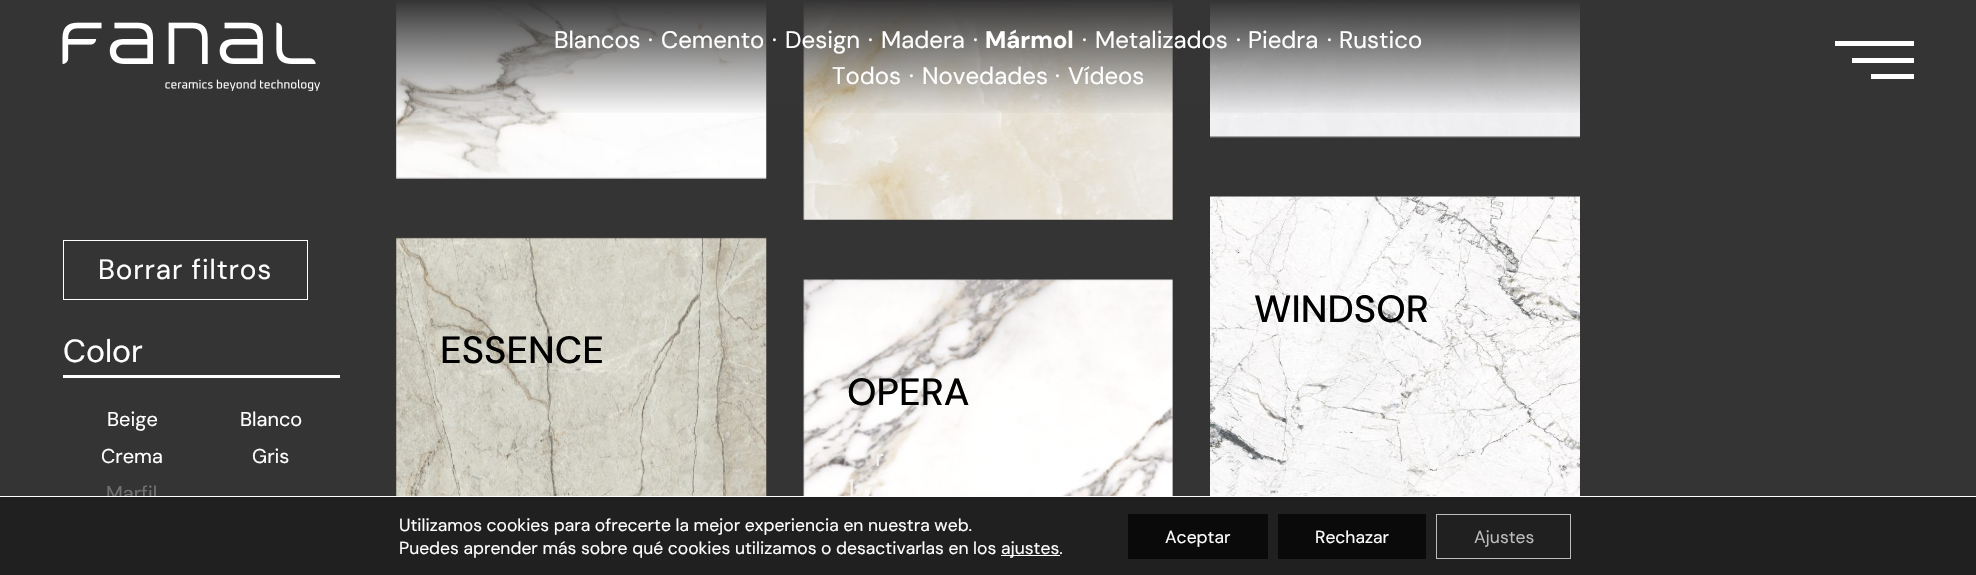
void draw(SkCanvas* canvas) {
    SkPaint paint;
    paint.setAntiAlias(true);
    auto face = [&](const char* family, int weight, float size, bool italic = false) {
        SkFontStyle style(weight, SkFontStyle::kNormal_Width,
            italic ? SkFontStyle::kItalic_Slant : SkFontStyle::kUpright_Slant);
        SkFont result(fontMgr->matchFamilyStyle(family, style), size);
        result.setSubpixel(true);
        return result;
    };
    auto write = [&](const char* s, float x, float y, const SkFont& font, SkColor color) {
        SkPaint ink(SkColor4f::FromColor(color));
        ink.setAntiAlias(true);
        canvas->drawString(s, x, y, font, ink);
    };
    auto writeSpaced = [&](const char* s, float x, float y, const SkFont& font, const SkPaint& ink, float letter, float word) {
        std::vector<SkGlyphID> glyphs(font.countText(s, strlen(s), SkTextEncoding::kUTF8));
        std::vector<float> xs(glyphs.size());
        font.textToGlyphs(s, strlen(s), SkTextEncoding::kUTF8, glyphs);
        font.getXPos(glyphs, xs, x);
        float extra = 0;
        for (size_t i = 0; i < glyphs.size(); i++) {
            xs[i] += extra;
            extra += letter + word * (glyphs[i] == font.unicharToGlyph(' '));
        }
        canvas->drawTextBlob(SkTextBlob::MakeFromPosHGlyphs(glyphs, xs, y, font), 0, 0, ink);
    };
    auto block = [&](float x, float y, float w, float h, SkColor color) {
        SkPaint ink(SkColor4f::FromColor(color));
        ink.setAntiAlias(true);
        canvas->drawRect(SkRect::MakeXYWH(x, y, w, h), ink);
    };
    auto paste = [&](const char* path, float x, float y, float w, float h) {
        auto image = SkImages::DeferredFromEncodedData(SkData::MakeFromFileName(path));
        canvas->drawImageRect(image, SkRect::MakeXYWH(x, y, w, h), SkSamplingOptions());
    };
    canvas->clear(SkColorSetRGB(53, 52, 52));
    paste("pic2.png", 1210, 1, 370, 137);
    block(396, 1, 370, 178, SkColorSetRGB(104, 103, 103));
    paste("pic4.png", 396, 1, 371, 178);
    block(804, 1, 369, 219, SkColorSetRGB(104, 103, 103));
    paste("pic6.png", 803, 1, 370, 219);
    {
        const SkColor colors[] = {SkColorSetRGB(53, 52, 52), SkColorSetARGB(0, 53, 52, 52)};
        const float stops[] = {0, 1};
        const SkPoint ends[] = {{988, 0}, {988, 116}};
        paint.setShader(SkGradientShader::MakeLinear(ends, colors, stops, 2, SkTileMode::kClamp));
        paint.setAlpha(255);
    }
    canvas->drawRect(SkRect::MakeXYWH(396, 1, 1184, 112), paint);
    paste("pic1.png", 62, 22, 258, 69);
    auto kFont1 = face("DM Sans", 400, 24);
    write("Blancos", 554, 48, kFont1, SK_ColorWHITE);
    write("·", 648, 48, kFont1, SK_ColorWHITE);
    write("Cemento", 661, 48, kFont1, SK_ColorWHITE);
    write("·", 772, 48, kFont1, SK_ColorWHITE);
    write("Design", 785, 48, kFont1, SK_ColorWHITE);
    write("·", 868, 48, kFont1, SK_ColorWHITE);
    write("Madera", 881, 48, kFont1, SK_ColorWHITE);
    write("·", 973, 48, kFont1, SK_ColorWHITE);
    auto kFont2 = face("DM Sans", 700, 24);
    write("Mármol", 985, 48, kFont2, SK_ColorWHITE);
    write("·", 1082, 48, kFont1, SK_ColorWHITE);
    write("Metalizados", 1095, 48, kFont1, SK_ColorWHITE);
    write("·", 1236, 48, kFont1, SK_ColorWHITE);
    write("Piedra", 1248, 48, kFont1, SK_ColorWHITE);
    write("·", 1327, 48, kFont1, SK_ColorWHITE);
    write("Rustico", 1339, 48, kFont1, SK_ColorWHITE);
    write("Todos", 832, 84, kFont1, SK_ColorWHITE);
    write("·", 909, 84, kFont1, SK_ColorWHITE);
    write("Novedades", 922, 84, kFont1, SK_ColorWHITE);
    write("·", 1055, 84, kFont1, SK_ColorWHITE);
    write("Vídeos", 1068, 84, kFont1, SK_ColorWHITE);
    paint.setShader(nullptr);
    paint.setColor(SK_ColorWHITE);
    canvas->drawPath(SkPathBuilder().moveTo(1835, 46).lineTo(1835, 41).lineTo(1914, 41).lineTo(1914, 46).close().moveTo(1852, 63).lineTo(1852, 58).lineTo(1914, 58).lineTo(1914, 63).close().moveTo(1871, 79).lineTo(1871, 74).lineTo(1914, 74).lineTo(1914, 79).close().detach(), paint);
    paint.setStyle(SkPaint::kStroke_Style);
    paint.setStrokeWidth(1);
    canvas->drawRect(SkRect::MakeXYWH(63.5f, 240.5f, 244, 59), paint);
    auto kFont3 = face("DM Sans", 400, 28);
    paint.setStyle(SkPaint::kFill_Style);
    writeSpaced("Borrar filtros", 98, 279, kFont3, paint, 0.9f, 0);
    block(63, 375, 277, 3, SK_ColorWHITE);
    auto kFont4 = face("DM Sans", 400, 32);
    write("Color", 63, 362, kFont4, SK_ColorWHITE);
    auto kFont5 = face("DM Sans", 400, 20);
    write("Beige", 107, 426, kFont5, SK_ColorWHITE);
    write("Blanco", 240, 426, kFont5, SK_ColorWHITE);
    write("Crema", 101, 463, kFont5, SK_ColorWHITE);
    write("Gris", 252, 463, kFont5, SK_ColorWHITE);
    write("Marfil", 106, 500, kFont5, SkColorSetRGB(114, 113, 113));
    block(1210, 196, 370, 1, SkColorSetARGB(64, 255, 255, 255));
    paste("pic3.png", 1210, 196, 370, 300);
    auto kFont6 = face("DM Sans", 500, 38);
    write("WINDSOR", 1254, 322, kFont6, SK_ColorBLACK);
    paste("pic5.png", 396, 237, 371, 259);
    write("ESSENCE", 440, 363, kFont6, SK_ColorBLACK);
    block(804, 280, 369, 216, SkColorSetARGB(64, 255, 255, 255));
    paste("pic7.png", 803, 279, 370, 217);
    write("OPERA", 847, 405, kFont6, SK_ColorBLACK);
    write("r", 875, 466, kFont1, SkColorSetRGB(246, 244, 242));
    write("1", 847, 496, kFont1, SkColorSetRGB(246, 244, 242));
    block(0, 497, 1976, 78, SkColorSetRGB(32, 32, 32));
    block(0, 496, 1976, 1, SK_ColorWHITE);
    auto kFont7 = face("DM Sans", 400, 17.5f);
    write("Utilizamos cookies para ofrecerte la mejor experiencia en nuestra web.", 399, 531, kFont7, SK_ColorWHITE);
    write("Puedes aprender más sobre qué cookies utilizamos o desactivarlas en los", 399, 554, kFont7, SK_ColorWHITE);
    block(1001, 555, 59, 1, SK_ColorWHITE);
    write("ajustes.", 1001, 554, kFont7, SK_ColorWHITE);
    block(1128, 514, 140, 45, SkColorSetRGB(10, 10, 10));
    write("Aceptar", 1165, 543, kFont7, SK_ColorWHITE);
    block(1278, 514, 148, 45, SkColorSetRGB(10, 10, 10));
    write("Rechazar", 1315, 543, kFont7, SK_ColorWHITE);
    paint.setStyle(SkPaint::kStroke_Style);
    paint.setColor(SkColorSetRGB(188, 188, 188));
    canvas->drawRect(SkRect::MakeXYWH(1436.5f, 514.5f, 134, 44), paint);
    write("Ajustes", 1474, 543, kFont7, SkColorSetRGB(188, 188, 188));
}
